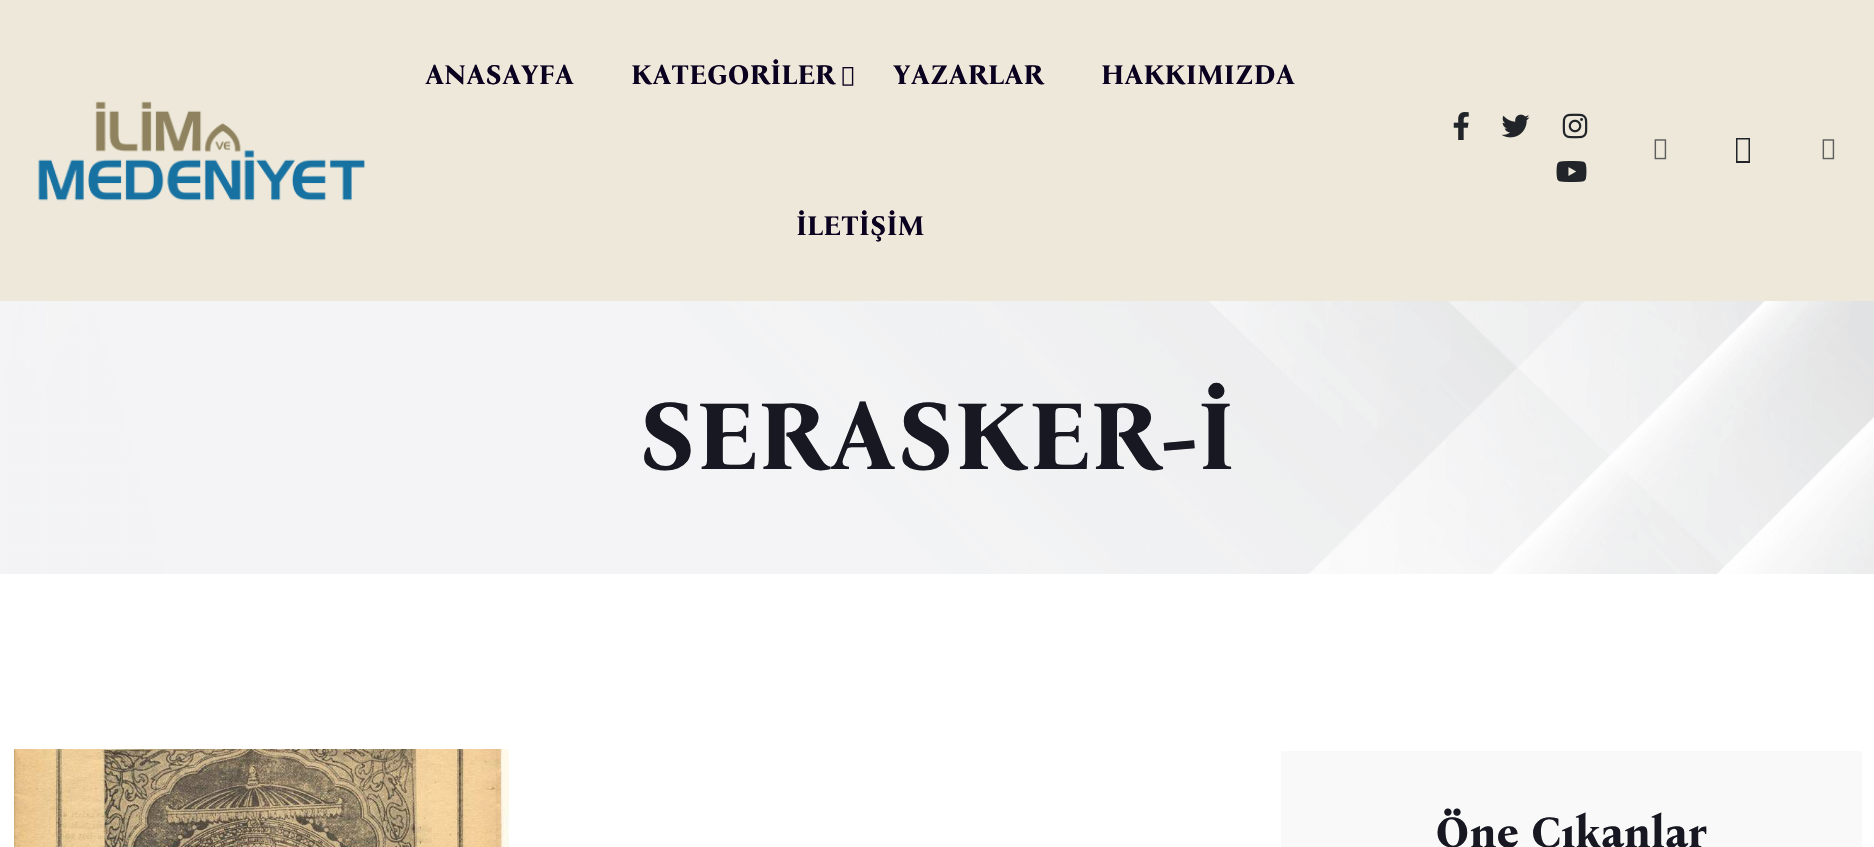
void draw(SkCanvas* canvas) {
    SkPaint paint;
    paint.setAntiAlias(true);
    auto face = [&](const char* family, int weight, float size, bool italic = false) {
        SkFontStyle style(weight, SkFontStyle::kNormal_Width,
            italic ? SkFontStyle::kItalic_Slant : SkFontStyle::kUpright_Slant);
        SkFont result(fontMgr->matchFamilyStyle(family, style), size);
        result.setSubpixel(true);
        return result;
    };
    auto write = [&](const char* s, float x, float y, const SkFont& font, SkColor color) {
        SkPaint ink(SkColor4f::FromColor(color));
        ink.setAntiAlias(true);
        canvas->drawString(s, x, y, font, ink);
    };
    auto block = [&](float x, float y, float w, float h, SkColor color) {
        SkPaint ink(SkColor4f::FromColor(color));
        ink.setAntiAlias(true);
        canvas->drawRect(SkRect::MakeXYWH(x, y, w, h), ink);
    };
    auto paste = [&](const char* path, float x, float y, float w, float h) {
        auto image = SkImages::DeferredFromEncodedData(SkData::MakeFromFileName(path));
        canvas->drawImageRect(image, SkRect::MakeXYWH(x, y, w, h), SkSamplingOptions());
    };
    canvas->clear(SK_ColorWHITE);
    block(0, 0, 1874, 301, SkColorSetRGB(237, 232, 217));
    paste("pic1.png", 38, 101, 327, 100);
    auto kFont1 = face("Bona Nova", 700, 28);
    write("ANASAYFA", 425, 84, kFont1, SkColorSetRGB(10, 0, 31));
    write("KATEGORİLER", 631, 84, kFont1, SkColorSetRGB(10, 0, 31));
    paste("pic2.png", 842, 67, 12, 19);
    write("YAZARLAR", 893, 84, kFont1, SkColorSetRGB(10, 0, 31));
    write("HAKKIMIZDA", 1101, 84, kFont1, SkColorSetRGB(10, 0, 31));
    write("İLETİŞİM", 796, 235, kFont1, SkColorSetRGB(10, 0, 31));
    paste("pic3.png", 1453, 112, 16, 28);
    paste("pic4.png", 1501, 114, 29, 24);
    paste("pic5.png", 1562, 113, 26, 26);
    paste("pic6.png", 1556, 161, 31, 21);
    paste("pic7.png", 1654, 139, 13, 21);
    paint.setColor(SkColorSetRGB(33, 37, 41));
    canvas->drawPath(SkPathBuilder().moveTo(1736, 163).lineTo(1736, 138).lineTo(1750, 138).lineTo(1750, 163).close().moveTo(1737.5f, 161).lineTo(1748.5f, 161).lineTo(1748.5f, 139.5f).lineTo(1737.5f, 139.5f).close().detach(), paint);
    paste("pic7.png", 1822, 139, 13, 21);
    paste("pic8.png", 0, 301, 1874, 273);
    auto kFont2 = face("Bona Nova", 700, 98);
    write("SERASKER-İ", 638, 469, kFont2, SkColorSetRGB(24, 24, 35));
    paste("pic9.png", 14, 749, 495, 98);
    block(1281, 751, 581, 96, SkColorSetRGB(249, 249, 249));
    auto kFont3 = face("Bona Nova", 700, 43.75f);
    write("Öne Çıkanlar", 1435, 847, kFont3, SkColorSetRGB(24, 24, 35));
}
